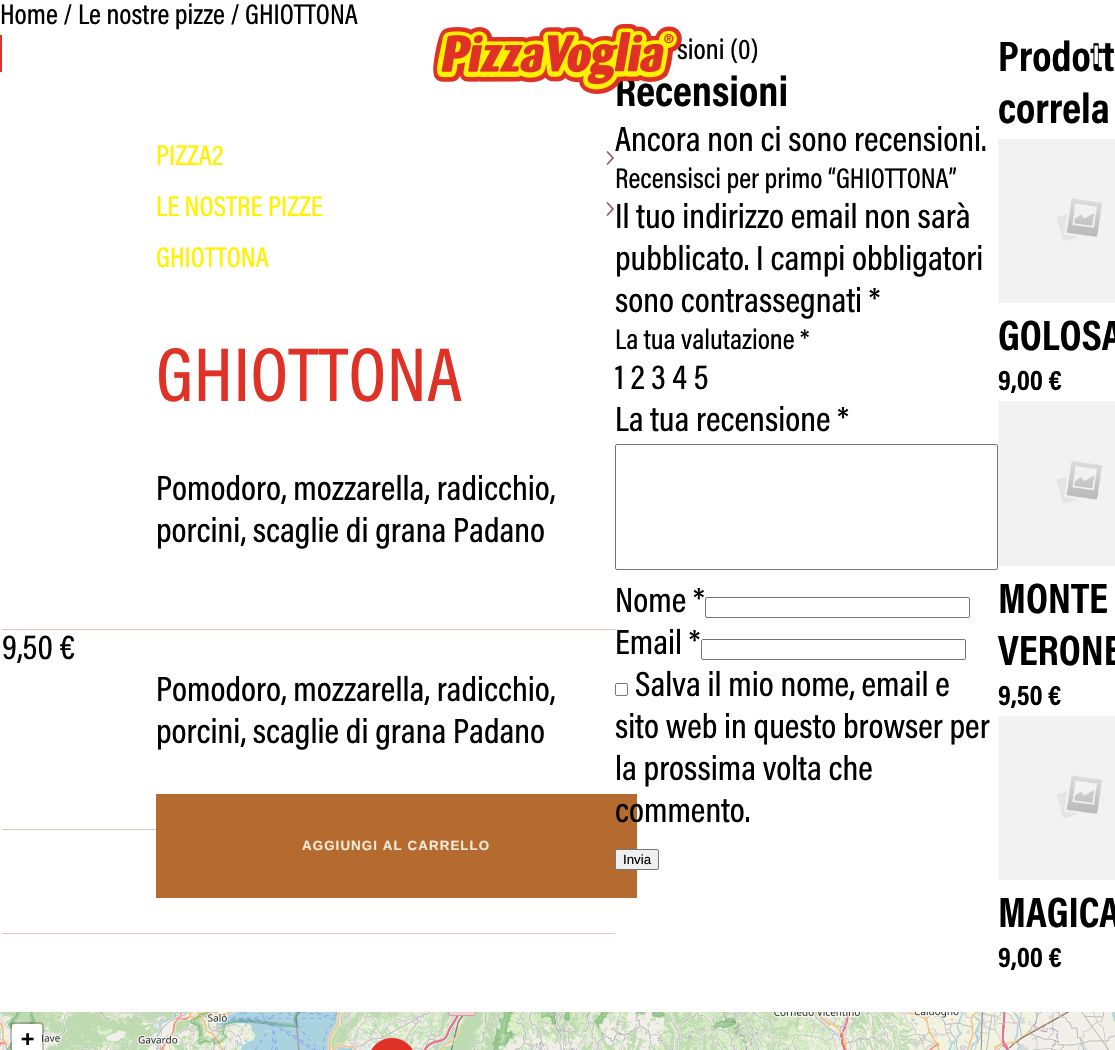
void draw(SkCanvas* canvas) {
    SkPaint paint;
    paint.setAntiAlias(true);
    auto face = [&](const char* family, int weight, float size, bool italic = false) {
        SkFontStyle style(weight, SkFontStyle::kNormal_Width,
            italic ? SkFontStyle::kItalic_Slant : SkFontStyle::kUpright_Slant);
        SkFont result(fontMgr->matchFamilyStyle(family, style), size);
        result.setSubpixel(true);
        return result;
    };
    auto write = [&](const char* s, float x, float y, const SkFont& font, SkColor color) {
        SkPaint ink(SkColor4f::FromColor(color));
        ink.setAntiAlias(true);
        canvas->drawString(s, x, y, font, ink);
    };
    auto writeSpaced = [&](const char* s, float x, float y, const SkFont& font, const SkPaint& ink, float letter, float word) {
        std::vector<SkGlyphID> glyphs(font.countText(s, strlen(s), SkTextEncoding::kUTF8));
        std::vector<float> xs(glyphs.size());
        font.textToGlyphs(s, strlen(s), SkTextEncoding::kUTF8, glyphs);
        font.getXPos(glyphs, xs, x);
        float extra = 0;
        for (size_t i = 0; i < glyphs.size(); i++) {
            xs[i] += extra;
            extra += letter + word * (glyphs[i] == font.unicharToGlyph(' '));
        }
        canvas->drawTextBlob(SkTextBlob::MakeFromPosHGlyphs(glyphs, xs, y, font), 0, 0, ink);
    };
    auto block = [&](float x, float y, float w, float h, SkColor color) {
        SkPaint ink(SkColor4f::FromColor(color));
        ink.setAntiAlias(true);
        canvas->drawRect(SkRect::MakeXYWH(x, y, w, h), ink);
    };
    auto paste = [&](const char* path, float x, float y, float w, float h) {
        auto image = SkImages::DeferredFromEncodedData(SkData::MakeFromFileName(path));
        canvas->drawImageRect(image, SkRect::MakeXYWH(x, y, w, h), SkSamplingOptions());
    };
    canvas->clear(SK_ColorWHITE);
    auto kFont1 = face("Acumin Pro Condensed", 500, 28.75f);
    write("Home / Le nostre pizze / GHIOTTONA", 0, 24, kFont1, SK_ColorBLACK);
    block(0, 35, 2, 37, SkColorSetRGB(224, 49, 39));
    write("PIZZA2", 156, 165, kFont1, SkColorSetRGB(255, 242, 0));
    paint.setStyle(SkPaint::kStroke_Style);
    paint.setStrokeWidth(1.6f);
    paint.setColor(SkColorSetRGB(144, 82, 103));
    canvas->drawPath(SkPathBuilder().moveTo(607, 151.5f).lineTo(613, 158).lineTo(607, 164.5f).detach(), paint);
    write("LE NOSTRE PIZZE", 156, 216, kFont1, SkColorSetRGB(255, 242, 0));
    canvas->drawPath(SkPathBuilder().moveTo(607, 202.5f).lineTo(613, 209).lineTo(607, 215.5f).detach(), paint);
    write("GHIOTTONA", 156, 267, kFont1, SkColorSetRGB(255, 242, 0));
    auto kFont2 = face("Acumin Pro Condensed", 500, 77);
    paint.setStyle(SkPaint::kFill_Style);
    paint.setColor(SkColorSetRGB(224, 49, 39));
    writeSpaced("GHIOTTONA", 156, 401, kFont2, paint, 0.5f, 0);
    block(2, 629, 613, 1, SkColorSetRGB(231, 191, 191));
    auto kFont3 = face("Acumin Pro Condensed", 500, 35.25f);
    write("Pomodoro, mozzarella, radicchio,", 156, 500, kFont3, SK_ColorBLACK);
    write("porcini, scaglie di grana Padano", 156, 542, kFont3, SK_ColorBLACK);
    write("9,50 €", 2, 659, kFont3, SK_ColorBLACK);
    block(2, 829, 154, 1, SkColorSetRGB(231, 191, 191));
    write("Pomodoro, mozzarella, radicchio,", 156, 701, kFont3, SK_ColorBLACK);
    write("porcini, scaglie di grana Padano", 156, 743, kFont3, SK_ColorBLACK);
    block(2, 933, 613, 1, SkColorSetRGB(230, 194, 194));
    block(156, 794, 481, 104, SkColorSetRGB(181, 106, 48));
    auto kFont4 = face("Liberation Sans", 700, 13.3f);
    paint.setColor(SkColorSetRGB(246, 235, 216));
    writeSpaced("AGGIUNGI AL CARRELLO", 302, 850, kFont4, paint, 1.1f, 0);
    write("sioni (0)", 677, 59, kFont1, SK_ColorBLACK);
    auto kFont5 = face("Acumin Pro Condensed", 700, 43);
    write("Recensioni", 615, 106, kFont5, SK_ColorBLACK);
    write("Ancora non ci sono recensioni.", 615, 151, kFont3, SK_ColorBLACK);
    write("Recensisci per primo “GHIOTTONA”", 615, 188, kFont1, SK_ColorBLACK);
    write("Il tuo indirizzo email non sarà", 615, 228, kFont3, SK_ColorBLACK);
    write("pubblicato. I campi obbligatori", 615, 270, kFont3, SK_ColorBLACK);
    write("sono contrassegnati *", 615, 312, kFont3, SK_ColorBLACK);
    write("La tua valutazione *", 615, 349, kFont1, SK_ColorBLACK);
    write("1 2 3 4 5", 615, 389, kFont3, SK_ColorBLACK);
    write("La tua recensione *", 615, 431, kFont3, SK_ColorBLACK);
    paint.setStyle(SkPaint::kStroke_Style);
    paint.setStrokeWidth(1);
    paint.setColor(SkColorSetRGB(118, 118, 118));
    canvas->drawRoundRect(SkRect::MakeXYWH(615.5f, 444.5f, 382, 125), 1.5f, 1.5f, paint);
    write("Nome *", 615, 612, kFont3, SK_ColorBLACK);
    canvas->drawRoundRect(SkRect::MakeXYWH(705.5f, 597.5f, 264, 20), 1.5f, 1.5f, paint);
    write("Email *", 615, 654, kFont3, SK_ColorBLACK);
    canvas->drawRoundRect(SkRect::MakeXYWH(701.5f, 639.5f, 264, 20), 1.5f, 1.5f, paint);
    canvas->drawRoundRect(SkRect::MakeXYWH(615.5f, 683.5f, 12, 12), 1.5f, 1.5f, paint);
    write("Salva il mio nome, email e", 635, 696, kFont3, SK_ColorBLACK);
    write("sito web in questo browser per", 615, 738, kFont3, SK_ColorBLACK);
    write("la prossima volta che", 615, 780, kFont3, SK_ColorBLACK);
    write("commento.", 615, 822, kFont3, SK_ColorBLACK);
    paint.setStyle(SkPaint::kFill_Style);
    paint.setColor(SkColorSetRGB(239, 239, 239));
    canvas->drawRoundRect(SkRect::MakeXYWH(615.5f, 849.5f, 43, 20), 1.5f, 1.5f, paint);
    paint.setStyle(SkPaint::kStroke_Style);
    paint.setColor(SkColorSetRGB(118, 118, 118));
    canvas->drawRoundRect(SkRect::MakeXYWH(615.5f, 849.5f, 43, 20), 1.5f, 1.5f, paint);
    auto kFont6 = face("Liberation Sans", 400, 13.3f);
    write("Invia", 623, 864, kFont6, SK_ColorBLACK);
    write("Prodott", 998, 71, kFont5, SK_ColorBLACK);
    write("correla", 998, 123, kFont5, SK_ColorBLACK);
    paste("pic1.png", 998, 139, 117, 164);
    write("GOLOSA", 998, 350, kFont5, SK_ColorBLACK);
    auto kFont7 = face("Acumin Pro Condensed", 700, 28.75f);
    write("9,00 €", 998, 390, kFont7, SK_ColorBLACK);
    paste("pic2.png", 998, 401, 117, 165);
    write("MONTE", 998, 613, kFont5, SK_ColorBLACK);
    write("VERONE", 998, 665, kFont5, SK_ColorBLACK);
    write("9,50 €", 998, 705, kFont7, SK_ColorBLACK);
    paste("pic1.png", 998, 716, 117, 164);
    write("MAGICA", 998, 927, kFont5, SK_ColorBLACK);
    write("9,00 €", 998, 967, kFont7, SK_ColorBLACK);
    paste("pic3.png", 433, 24, 249, 70);
    auto kFont8 = face("Acumin Pro Condensed", 700, 27);
    write("I", 1093, 64, kFont8, SK_ColorWHITE);
    paste("pic4.png", 0, 1012, 237, 29);
    paste("pic5.png", 237, 1012, 256, 29);
    paste("pic6.png", 493, 1012, 256, 29);
    paste("pic7.png", 749, 1012, 256, 29);
    paste("pic8.png", 1005, 1012, 110, 29);
    paste("pic9.png", 0, 1041, 237, 9);
    paste("pic10.png", 237, 1041, 256, 9);
    paste("pic11.png", 493, 1041, 256, 9);
    paste("pic12.png", 749, 1041, 256, 9);
    paste("pic13.png", 1005, 1041, 110, 9);
    paste("pic14.png", 371, 1038, 42, 12);
    paint.setStrokeWidth(2);
    paint.setColor(SkColorSetARGB(51, 0, 0, 0));
    canvas->drawRoundRect(SkRect::MakeXYWH(11, 1023, 32, 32), 3, 3, paint);
    paint.setStyle(SkPaint::kFill_Style);
    paint.setColor(SK_ColorWHITE);
    canvas->drawPath(SkPathBuilder().moveTo(14, 1024).lineTo(40, 1024).cubicTo(41, 1024, 42, 1025, 42, 1026).lineTo(42, 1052).lineTo(12, 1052).lineTo(12, 1026).cubicTo(12, 1025, 13, 1024, 14, 1024).close().detach(), paint);
    auto kFont9 = face("DejaVu Sans Mono", 700, 22);
    write("+", 21, 1046, kFont9, SK_ColorBLACK);
}
